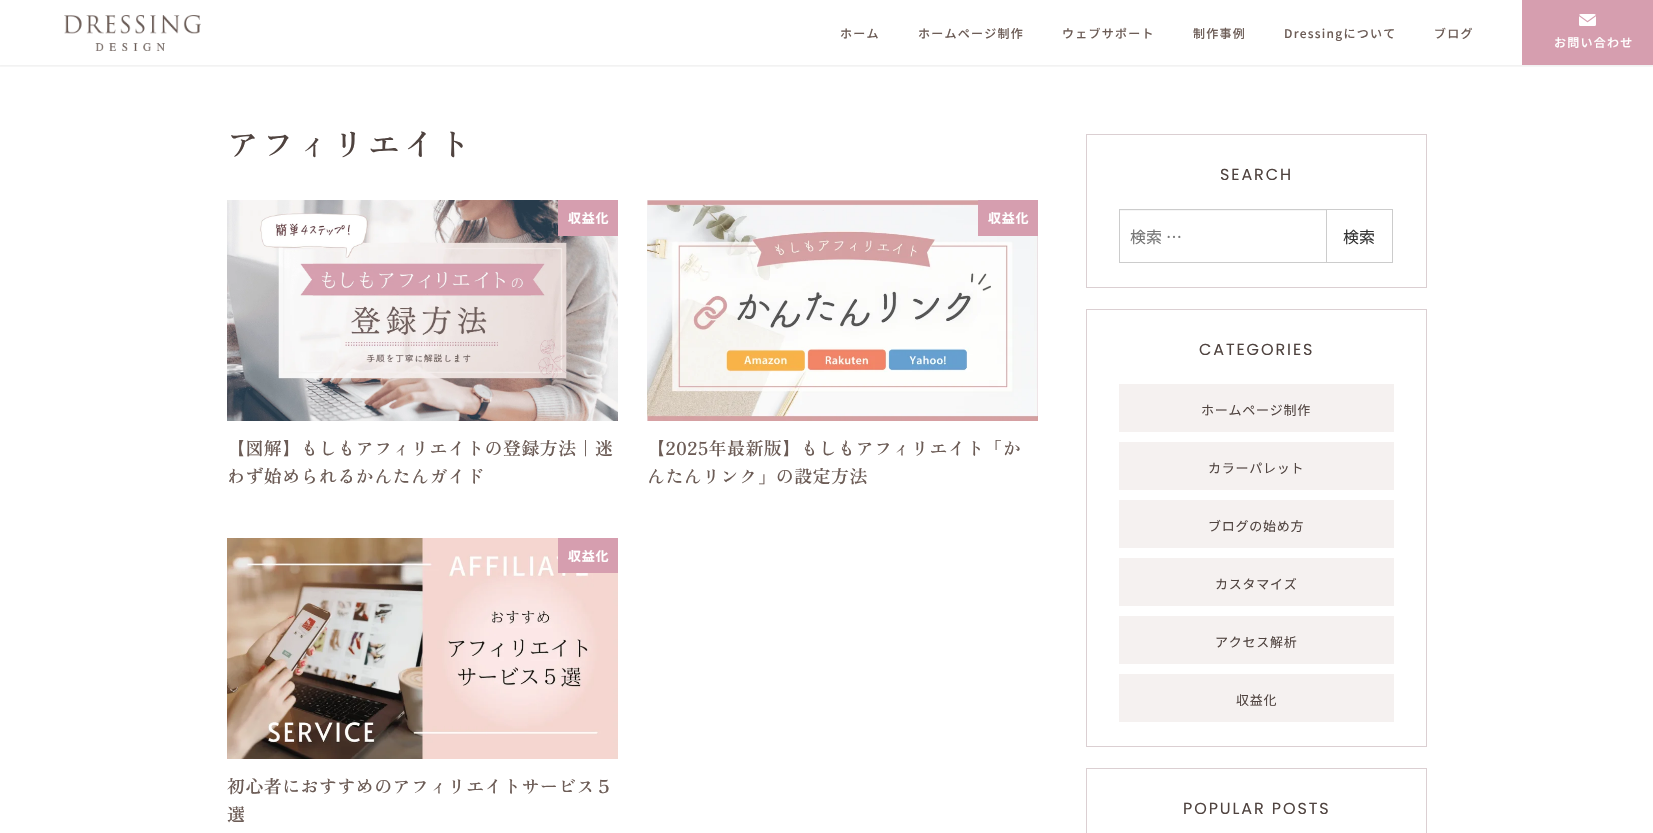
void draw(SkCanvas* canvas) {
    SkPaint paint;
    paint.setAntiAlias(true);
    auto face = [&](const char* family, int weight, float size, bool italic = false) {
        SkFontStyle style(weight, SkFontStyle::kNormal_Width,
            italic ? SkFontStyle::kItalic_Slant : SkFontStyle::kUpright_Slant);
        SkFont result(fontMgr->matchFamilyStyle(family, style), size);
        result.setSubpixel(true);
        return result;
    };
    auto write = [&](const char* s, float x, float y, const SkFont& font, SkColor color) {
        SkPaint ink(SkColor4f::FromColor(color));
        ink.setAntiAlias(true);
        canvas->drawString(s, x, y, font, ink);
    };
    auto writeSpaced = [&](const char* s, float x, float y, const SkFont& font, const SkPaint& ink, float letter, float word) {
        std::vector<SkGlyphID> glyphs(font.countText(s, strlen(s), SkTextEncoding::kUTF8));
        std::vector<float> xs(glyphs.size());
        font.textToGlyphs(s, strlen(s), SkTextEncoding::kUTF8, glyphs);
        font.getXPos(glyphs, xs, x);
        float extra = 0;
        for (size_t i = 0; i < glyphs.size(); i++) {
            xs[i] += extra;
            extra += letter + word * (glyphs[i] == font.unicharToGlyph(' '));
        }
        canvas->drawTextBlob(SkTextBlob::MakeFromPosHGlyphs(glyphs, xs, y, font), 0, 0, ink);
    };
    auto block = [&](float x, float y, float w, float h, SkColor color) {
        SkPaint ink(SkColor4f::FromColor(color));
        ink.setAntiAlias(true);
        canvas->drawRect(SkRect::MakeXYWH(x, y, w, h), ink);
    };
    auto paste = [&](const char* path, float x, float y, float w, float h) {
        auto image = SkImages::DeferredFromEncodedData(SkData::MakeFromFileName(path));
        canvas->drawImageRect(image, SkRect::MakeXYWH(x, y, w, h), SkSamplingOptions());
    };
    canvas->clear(SK_ColorWHITE);
    canvas->save();
    canvas->clipRect(SkRect::MakeXYWH(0, 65, 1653, 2));
    paint.setColor(SkColorSetARGB(13, 0, 0, 0));
    paint.setMaskFilter(SkMaskFilter::MakeBlur(kNormal_SkBlurStyle, 1));
    canvas->drawRect(SkRect::MakeXYWH(-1, 0, 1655, 67), paint);
    paint.setMaskFilter(nullptr);
    canvas->restore();
    paste("pic1.png", 64, 15, 137, 36);
    auto kFont1 = face("Noto Sans JP", 100, 12);
    paint.setColor(SkColorSetRGB(108, 92, 86));
    writeSpaced("ホーム", 840, 38, kFont1, paint, 1.25f, 0);
    writeSpaced("ホームページ制作", 918, 38, kFont1, paint, 1.25f, 0);
    writeSpaced("ウェブサポート", 1062, 38, kFont1, paint, 1.25f, 0);
    writeSpaced("制作事例", 1193, 38, kFont1, paint, 1.25f, 0);
    writeSpaced("Dressingについて", 1284, 38, kFont1, paint, 1.25f, 0);
    writeSpaced("ブログ", 1434, 38, kFont1, paint, 1.25f, 0);
    block(1522, 0, 131, 65, SkColorSetRGB(214, 158, 175));
    paste("pic2.png", 1579, 14, 17, 12);
    paint.setColor(SK_ColorWHITE);
    writeSpaced("お問い合わせ", 1554, 47, kFont1, paint, 1.25f, 0);
    auto kFont2 = face("Zen Old Mincho", 600, 32);
    paint.setColor(SkColorSetRGB(79, 67, 63));
    writeSpaced("アフィリエイト", 227, 156, kFont2, paint, 3.25f, 0);
    paste("pic3.png", 227, 200, 391, 221);
    block(558, 200, 60, 36, SkColorSetRGB(214, 158, 175));
    auto kFont3 = face("Noto Sans JP", 700, 13);
    paint.setColor(SK_ColorWHITE);
    writeSpaced("収益化", 568, 223, kFont3, paint, 0.75f, 0);
    auto kFont4 = face("Zen Old Mincho", 600, 18);
    paint.setColor(SkColorSetRGB(108, 92, 86));
    writeSpaced("【図解】もしもアフィリエイトの登録方法｜迷", 227, 455, kFont4, paint, 0.4f, 0);
    writeSpaced("わず始められるかんたんガイド", 227, 483, kFont4, paint, 0.4f, 0);
    block(647, 200, 331, 221, SkColorSetRGB(238, 238, 238));
    paste("pic4.png", 647, 200, 391, 221);
    block(978, 200, 60, 36, SkColorSetRGB(214, 158, 175));
    paint.setColor(SK_ColorWHITE);
    writeSpaced("収益化", 988, 223, kFont3, paint, 0.75f, 0);
    paint.setColor(SkColorSetRGB(108, 92, 86));
    writeSpaced("【2025年最新版】もしもアフィリエイト「か", 647, 455, kFont4, paint, 0.4f, 0);
    writeSpaced("んたんリンク」の設定方法", 647, 483, kFont4, paint, 0.4f, 0);
    paste("pic5.png", 227, 538, 391, 221);
    block(558, 538, 60, 35, SkColorSetRGB(214, 158, 175));
    paint.setColor(SK_ColorWHITE);
    writeSpaced("収益化", 568, 561, kFont3, paint, 0.75f, 0);
    paint.setColor(SkColorSetRGB(108, 92, 86));
    writeSpaced("初心者におすすめのアフィリエイトサービス５", 227, 793, kFont4, paint, 0.4f, 0);
    writeSpaced("選", 227, 821, kFont4, paint, 0.4f, 0);
    paint.setStyle(SkPaint::kStroke_Style);
    paint.setStrokeWidth(1);
    paint.setColor(SkColorSetRGB(219, 207, 210));
    canvas->drawRect(SkRect::MakeXYWH(1086.5f, 134.5f, 340, 153), paint);
    auto kFont5 = face("Poppins", 400, 16);
    paint.setStyle(SkPaint::kFill_Style);
    paint.setColor(SkColorSetRGB(79, 67, 63));
    writeSpaced("SEARCH", 1220, 180, kFont5, paint, 1.9f, 0);
    block(1120, 210, 206, 1, SkColorSetRGB(246, 246, 246));
    paint.setStyle(SkPaint::kStroke_Style);
    paint.setColor(SkColorSetRGB(204, 204, 204));
    canvas->drawRect(SkRect::MakeXYWH(1326.5f, 209.5f, 66, 53), paint);
    canvas->drawRect(SkRect::MakeXYWH(1119.5f, 209.5f, 207, 53), paint);
    auto kFont6 = face("Noto Sans JP", 400, 16);
    write("検索", 1130, 243, kFont6, SkColorSetRGB(117, 117, 117));
    write("…", 1166, 243, kFont6, SkColorSetRGB(117, 117, 117));
    write("検索", 1343, 243, kFont6, SkColorSetRGB(51, 51, 51));
    paint.setColor(SkColorSetRGB(219, 207, 210));
    canvas->drawRect(SkRect::MakeXYWH(1086.5f, 309.5f, 340, 437), paint);
    paint.setStyle(SkPaint::kFill_Style);
    paint.setColor(SkColorSetRGB(79, 67, 63));
    writeSpaced("CATEGORIES", 1199, 355, kFont5, paint, 1.9f, 0);
    block(1119, 384, 275, 48, SkColorSetRGB(245, 241, 240));
    auto kFont7 = face("Noto Sans JP", 400, 13);
    writeSpaced("ホームページ制作", 1201, 415, kFont7, paint, 0.75f, 0);
    block(1119, 442, 275, 48, SkColorSetRGB(245, 241, 240));
    writeSpaced("カラーパレット", 1208, 473, kFont7, paint, 0.75f, 0);
    block(1119, 500, 275, 48, SkColorSetRGB(245, 241, 240));
    writeSpaced("ブログの始め方", 1208, 531, kFont7, paint, 0.75f, 0);
    block(1119, 558, 275, 48, SkColorSetRGB(245, 241, 240));
    writeSpaced("カスタマイズ", 1215, 589, kFont7, paint, 0.75f, 0);
    block(1119, 616, 275, 48, SkColorSetRGB(245, 241, 240));
    writeSpaced("アクセス解析", 1215, 647, kFont7, paint, 0.75f, 0);
    block(1119, 674, 275, 48, SkColorSetRGB(245, 241, 240));
    writeSpaced("収益化", 1236, 705, kFont7, paint, 0.75f, 0);
    paint.setStyle(SkPaint::kStroke_Style);
    paint.setColor(SkColorSetRGB(219, 207, 210));
    canvas->drawRect(SkRect::MakeXYWH(1086.5f, 768.5f, 340, 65), paint);
    paint.setStyle(SkPaint::kFill_Style);
    paint.setColor(SkColorSetRGB(79, 67, 63));
    writeSpaced("POPULAR POSTS", 1183, 814, kFont5, paint, 1.9f, 0);
}
